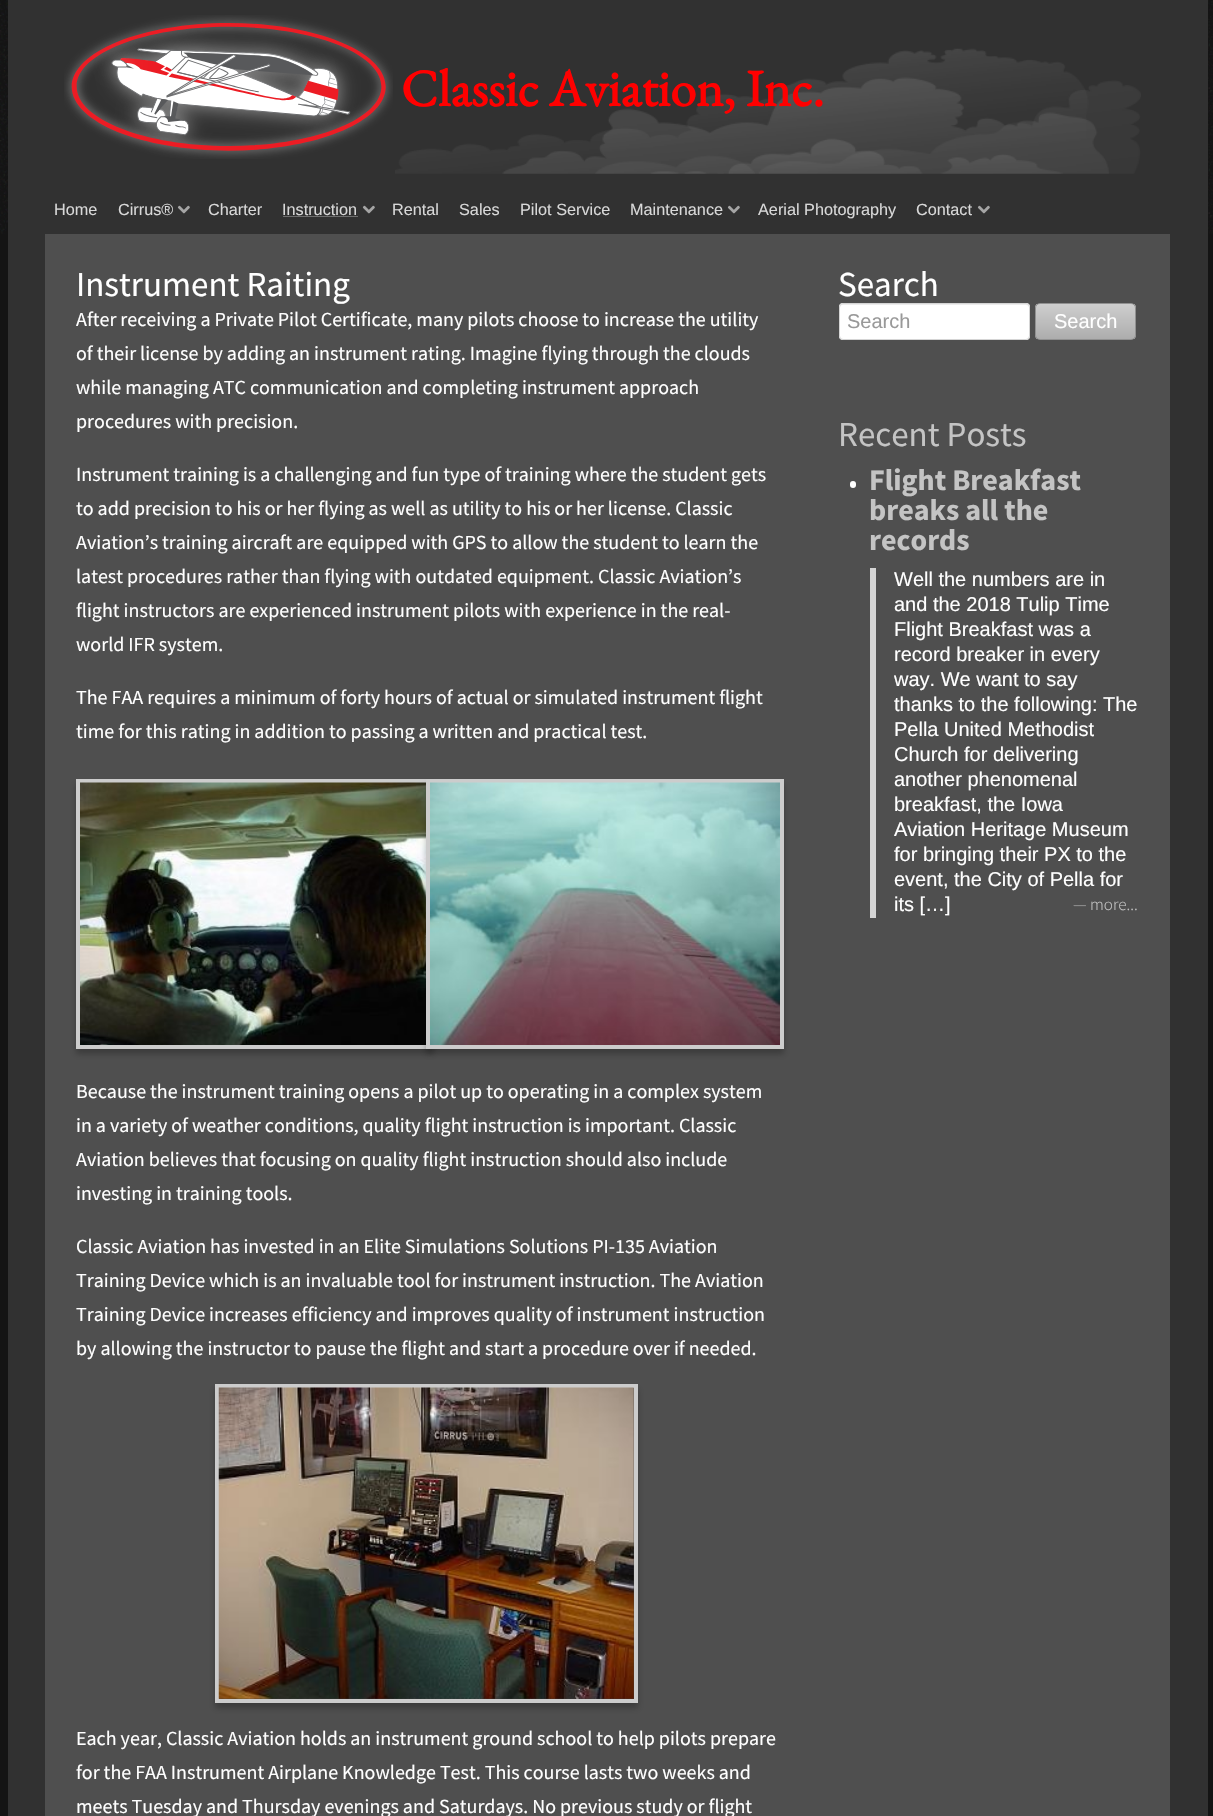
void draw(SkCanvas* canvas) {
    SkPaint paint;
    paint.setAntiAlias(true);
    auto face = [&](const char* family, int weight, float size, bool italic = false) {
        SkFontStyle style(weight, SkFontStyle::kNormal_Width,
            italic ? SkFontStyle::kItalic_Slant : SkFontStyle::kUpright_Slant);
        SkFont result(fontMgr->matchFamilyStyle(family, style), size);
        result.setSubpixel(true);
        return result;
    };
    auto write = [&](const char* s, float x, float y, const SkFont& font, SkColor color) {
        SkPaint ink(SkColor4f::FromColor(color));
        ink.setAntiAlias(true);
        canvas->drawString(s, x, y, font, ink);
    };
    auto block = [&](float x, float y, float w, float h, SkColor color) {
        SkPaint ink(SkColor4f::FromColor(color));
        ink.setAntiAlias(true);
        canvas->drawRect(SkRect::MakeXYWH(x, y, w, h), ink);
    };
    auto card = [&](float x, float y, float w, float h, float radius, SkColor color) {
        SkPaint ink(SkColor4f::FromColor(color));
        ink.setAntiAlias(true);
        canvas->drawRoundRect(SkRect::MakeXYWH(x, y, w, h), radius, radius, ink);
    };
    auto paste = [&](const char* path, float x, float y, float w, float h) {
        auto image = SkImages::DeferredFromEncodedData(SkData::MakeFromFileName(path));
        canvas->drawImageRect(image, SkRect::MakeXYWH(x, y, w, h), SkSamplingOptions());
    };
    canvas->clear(SkColorSetRGB(20, 20, 20));
    paste("pic1.png", 0, 0, 1213, 234);
    block(8, 0, 1200, 234, SkColorSetRGB(49, 49, 49));
    paste("pic2.png", 395, 48, 746, 126);
    paste("pic3.png", 64, 15, 329, 144);
    auto kFont1 = face("EB Garamond", 700, 52);
    write("Classic Aviation, Inc.", 401, 106, kFont1, SkColorSetRGB(255, 0, 0));
    auto kFont2 = face("Liberation Sans", 400, 16.25f);
    write("Home", 54, 215, kFont2, SkColorSetRGB(216, 216, 216));
    write("Cirrus®", 118, 215, kFont2, SkColorSetRGB(216, 216, 216));
    paste("pic4.png", 177, 205, 13, 9);
    write("Charter", 208, 215, kFont2, SkColorSetRGB(216, 216, 216));
    write("Instruction", 282, 215, kFont2, SkColorSetRGB(216, 216, 216));
    block(283, 216, 75, 1, SkColorSetRGB(110, 110, 110));
    paste("pic4.png", 362, 205, 13, 9);
    write("Rental", 392, 215, kFont2, SkColorSetRGB(216, 216, 216));
    write("Sales", 459, 215, kFont2, SkColorSetRGB(216, 216, 216));
    write("Pilot Service", 520, 215, kFont2, SkColorSetRGB(216, 216, 216));
    write("Maintenance", 630, 215, kFont2, SkColorSetRGB(216, 216, 216));
    paste("pic4.png", 727, 205, 13, 9);
    write("Aerial Photography", 758, 215, kFont2, SkColorSetRGB(216, 216, 216));
    write("Contact", 916, 215, kFont2, SkColorSetRGB(216, 216, 216));
    paste("pic4.png", 977, 205, 13, 9);
    block(8, 234, 1200, 1582, SkColorSetRGB(49, 49, 49));
    block(45, 234, 1125, 1582, SkColorSetRGB(79, 79, 79));
    auto kFont3 = face("Source Sans Pro", 400, 35);
    write("Instrument Raiting", 76, 296, kFont3, SK_ColorWHITE);
    auto kFont4 = face("Source Sans Pro", 400, 20);
    write("After receiving a Private Pilot Certificate, many pilots choose to increase the utility", 76, 326, kFont4, SK_ColorWHITE);
    write("of their license by adding an instrument rating. Imagine flying through the clouds", 76, 360, kFont4, SK_ColorWHITE);
    write("while managing ATC communication and completing instrument approach", 76, 394, kFont4, SK_ColorWHITE);
    write("procedures with precision.", 76, 428, kFont4, SK_ColorWHITE);
    write("Instrument training is a challenging and fun type of training where the student gets", 76, 481, kFont4, SK_ColorWHITE);
    write("to add precision to his or her flying as well as utility to his or her license. Classic", 76, 515, kFont4, SK_ColorWHITE);
    write("Aviation’s training aircraft are equipped with GPS to allow the student to learn the", 76, 549, kFont4, SK_ColorWHITE);
    write("latest procedures rather than flying with outdated equipment. Classic Aviation’s", 76, 583, kFont4, SK_ColorWHITE);
    write("flight instructors are experienced instrument pilots with experience in the real-", 76, 617, kFont4, SK_ColorWHITE);
    write("world IFR system.", 76, 651, kFont4, SK_ColorWHITE);
    write("The FAA requires a minimum of forty hours of actual or simulated instrument flight", 76, 704, kFont4, SK_ColorWHITE);
    write("time for this rating in addition to passing a written and practical test.", 76, 738, kFont4, SK_ColorWHITE);
    paint.setColor(SkColorSetARGB(64, 0, 0, 0));
    paint.setMaskFilter(SkMaskFilter::MakeBlur(kNormal_SkBlurStyle, 3));
    canvas->drawRect(SkRect::MakeXYWH(76, 784, 358, 270), paint);
    paint.setMaskFilter(nullptr);
    paint.setStyle(SkPaint::kStroke_Style);
    paint.setStrokeWidth(4);
    paint.setColor(SkColorSetRGB(204, 204, 204));
    canvas->drawRect(SkRect::MakeXYWH(78, 781, 354, 266), paint);
    paste("pic5.png", 80, 782, 346, 263);
    paint.setStyle(SkPaint::kFill_Style);
    paint.setColor(SkColorSetARGB(64, 0, 0, 0));
    paint.setMaskFilter(SkMaskFilter::MakeBlur(kNormal_SkBlurStyle, 3));
    canvas->drawRect(SkRect::MakeXYWH(426, 784, 358, 270), paint);
    paint.setMaskFilter(nullptr);
    paint.setStyle(SkPaint::kStroke_Style);
    paint.setColor(SkColorSetRGB(204, 204, 204));
    canvas->drawRect(SkRect::MakeXYWH(428, 781, 354, 266), paint);
    paste("pic6.png", 430, 782, 350, 263);
    write("Because the instrument training opens a pilot up to operating in a complex system", 76, 1098, kFont4, SK_ColorWHITE);
    write("in a variety of weather conditions, quality flight instruction is important. Classic", 76, 1132, kFont4, SK_ColorWHITE);
    write("Aviation believes that focusing on quality flight instruction should also include", 76, 1166, kFont4, SK_ColorWHITE);
    write("investing in training tools.", 76, 1200, kFont4, SK_ColorWHITE);
    write("Classic Aviation has invested in an Elite Simulations Solutions PI-135 Aviation", 76, 1253, kFont4, SK_ColorWHITE);
    write("Training Device which is an invaluable tool for instrument instruction. The Aviation", 76, 1287, kFont4, SK_ColorWHITE);
    write("Training Device increases efficiency and improves quality of instrument instruction", 76, 1321, kFont4, SK_ColorWHITE);
    write("by allowing the instructor to pause the flight and start a procedure over if needed.", 76, 1355, kFont4, SK_ColorWHITE);
    paint.setStyle(SkPaint::kFill_Style);
    paint.setColor(SkColorSetARGB(64, 0, 0, 0));
    paint.setMaskFilter(SkMaskFilter::MakeBlur(kNormal_SkBlurStyle, 3));
    canvas->drawRect(SkRect::MakeXYWH(215, 1389, 423, 319), paint);
    paint.setMaskFilter(nullptr);
    paint.setStyle(SkPaint::kStroke_Style);
    paint.setColor(SkColorSetRGB(204, 204, 204));
    canvas->drawRect(SkRect::MakeXYWH(217, 1386, 419, 315), paint);
    paste("pic7.png", 218, 1387, 416, 312);
    write("Each year, Classic Aviation holds an instrument ground school to help pilots prepare", 76, 1745, kFont4, SK_ColorWHITE);
    write("for the FAA Instrument Airplane Knowledge Test. This course lasts two weeks and", 76, 1779, kFont4, SK_ColorWHITE);
    write("meets Tuesday and Thursday evenings and Saturdays. No previous study or flight", 76, 1813, kFont4, SK_ColorWHITE);
    write("Search", 838, 296, kFont3, SK_ColorWHITE);
    card(839, 303, 191, 37, 4, SK_ColorWHITE);
    paint.setStyle(SkPaint::kFill_Style);
    paint.setColor(SkColorSetRGB(236, 236, 236));
    canvas->drawPath(SkPathBuilder().moveTo(842, 305).lineTo(1026, 305).cubicTo(1028, 305, 1029, 306, 1029, 308).cubicTo(1029, 306, 1029, 304, 1026, 304).lineTo(842, 304).cubicTo(840, 304, 840, 306, 840, 308).cubicTo(840, 306, 841, 305, 842, 305).close().detach(), paint);
    paint.setStyle(SkPaint::kStroke_Style);
    paint.setStrokeWidth(1);
    paint.setColor(SkColorSetRGB(213, 213, 213));
    canvas->drawRoundRect(SkRect::MakeXYWH(839.5f, 303.5f, 190, 36), 3.5f, 3.5f, paint);
    auto kFont5 = face("Liberation Sans", 400, 20);
    write("Search", 847, 328, kFont5, SkColorSetRGB(153, 153, 153));
    canvas->save();
    canvas->clipPath(SkPathBuilder().moveTo(1040, 303).lineTo(1131, 303).cubicTo(1134, 303, 1136, 305, 1136, 308).lineTo(1136, 335).cubicTo(1136, 338, 1134, 340, 1131, 340).lineTo(1040, 340).cubicTo(1037, 340, 1035, 338, 1035, 335).lineTo(1035, 308).cubicTo(1035, 305, 1037, 303, 1040, 303).close().detach(), true);
    paint.setStyle(SkPaint::kFill_Style);
    {
        const SkColor colors[] = {SkColorSetRGB(206, 206, 206), SkColorSetRGB(173, 173, 173)};
        const float stops[] = {0, 1};
        const SkPoint ends[] = {{1086, 304}, {1086, 339}};
        paint.setShader(SkGradientShader::MakeLinear(ends, colors, stops, 2, SkTileMode::kClamp));
        paint.setAlpha(255);
    }
    canvas->drawRect(SkRect::MakeXYWH(1035, 304, 101, 35), paint);
    canvas->restore();
    paint.setStyle(SkPaint::kStroke_Style);
    paint.setShader(nullptr);
    paint.setColor(SkColorSetRGB(145, 145, 145));
    canvas->drawRoundRect(SkRect::MakeXYWH(1035.5f, 303.5f, 100, 36), 4.5f, 4.5f, paint);
    write("Search", 1054, 328, kFont5, SK_ColorWHITE);
    write("Recent Posts", 838, 446, kFont3, SkColorSetRGB(196, 196, 196));
    card(850, 481, 6, 7, 3, SK_ColorWHITE);
    auto kFont6 = face("Source Sans Pro", 700, 30);
    write("Flight Breakfast", 869, 490, kFont6, SkColorSetRGB(196, 196, 196));
    write("breaks all the", 869, 520, kFont6, SkColorSetRGB(196, 196, 196));
    write("records", 869, 550, kFont6, SkColorSetRGB(196, 196, 196));
    block(870, 568, 6, 350, SkColorSetRGB(213, 213, 213));
    write("Well the numbers are in", 894, 586, kFont5, SK_ColorWHITE);
    write("and the 2018 Tulip Time", 894, 611, kFont5, SK_ColorWHITE);
    write("Flight Breakfast was a", 894, 636, kFont5, SK_ColorWHITE);
    write("record breaker in every", 894, 661, kFont5, SK_ColorWHITE);
    write("way. We want to say", 894, 686, kFont5, SK_ColorWHITE);
    write("thanks to the following: The", 894, 711, kFont5, SK_ColorWHITE);
    write("Pella United Methodist", 894, 736, kFont5, SK_ColorWHITE);
    write("Church for delivering", 894, 761, kFont5, SK_ColorWHITE);
    write("another phenomenal", 894, 786, kFont5, SK_ColorWHITE);
    write("breakfast, the Iowa", 894, 811, kFont5, SK_ColorWHITE);
    write("Aviation Heritage Museum", 894, 836, kFont5, SK_ColorWHITE);
    write("for bringing their PX to the", 894, 861, kFont5, SK_ColorWHITE);
    write("event, the City of Pella for", 894, 886, kFont5, SK_ColorWHITE);
    write("its […]", 894, 911, kFont5, SK_ColorWHITE);
    auto kFont7 = face("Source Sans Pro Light", 300, 17);
    write("—", 1073, 910, kFont7, SkColorSetRGB(170, 170, 170));
    write("more...", 1090, 910, kFont7, SkColorSetRGB(196, 196, 196));
}
